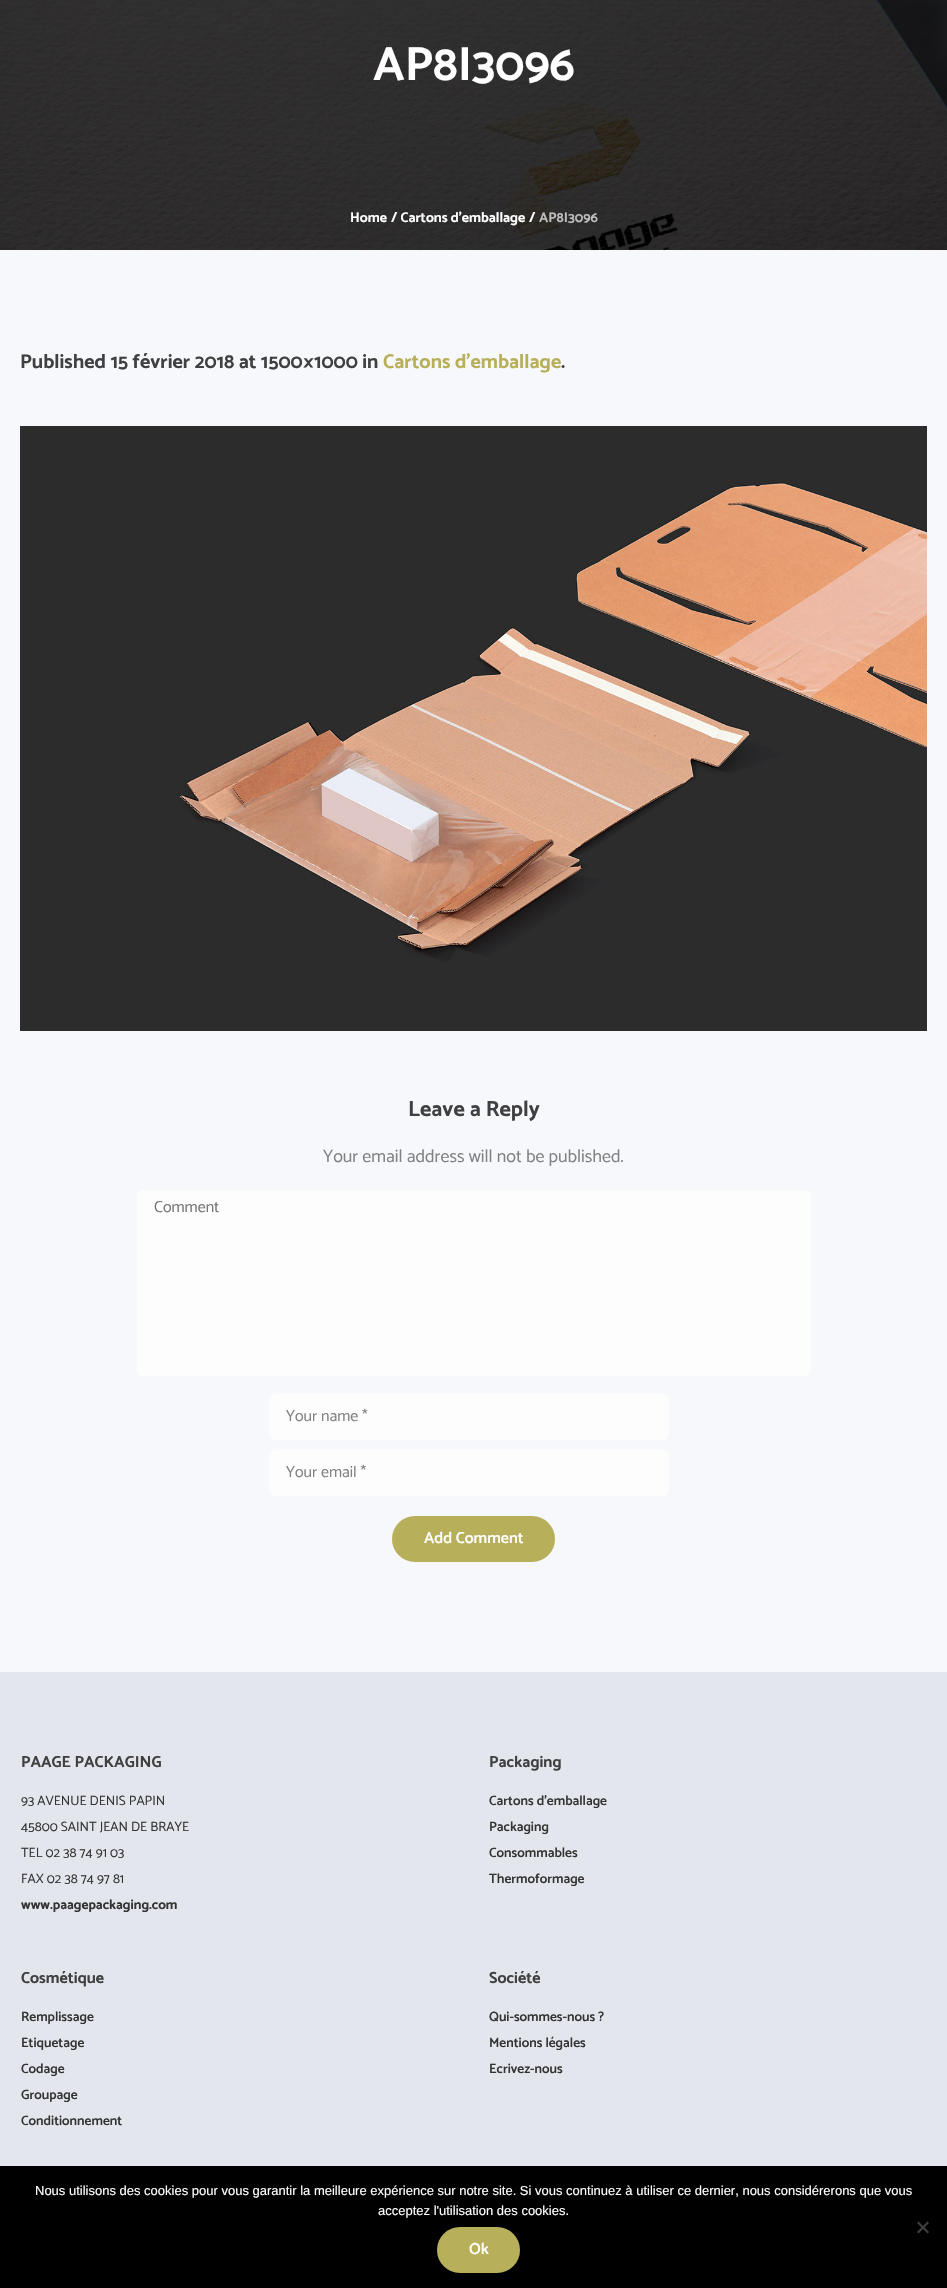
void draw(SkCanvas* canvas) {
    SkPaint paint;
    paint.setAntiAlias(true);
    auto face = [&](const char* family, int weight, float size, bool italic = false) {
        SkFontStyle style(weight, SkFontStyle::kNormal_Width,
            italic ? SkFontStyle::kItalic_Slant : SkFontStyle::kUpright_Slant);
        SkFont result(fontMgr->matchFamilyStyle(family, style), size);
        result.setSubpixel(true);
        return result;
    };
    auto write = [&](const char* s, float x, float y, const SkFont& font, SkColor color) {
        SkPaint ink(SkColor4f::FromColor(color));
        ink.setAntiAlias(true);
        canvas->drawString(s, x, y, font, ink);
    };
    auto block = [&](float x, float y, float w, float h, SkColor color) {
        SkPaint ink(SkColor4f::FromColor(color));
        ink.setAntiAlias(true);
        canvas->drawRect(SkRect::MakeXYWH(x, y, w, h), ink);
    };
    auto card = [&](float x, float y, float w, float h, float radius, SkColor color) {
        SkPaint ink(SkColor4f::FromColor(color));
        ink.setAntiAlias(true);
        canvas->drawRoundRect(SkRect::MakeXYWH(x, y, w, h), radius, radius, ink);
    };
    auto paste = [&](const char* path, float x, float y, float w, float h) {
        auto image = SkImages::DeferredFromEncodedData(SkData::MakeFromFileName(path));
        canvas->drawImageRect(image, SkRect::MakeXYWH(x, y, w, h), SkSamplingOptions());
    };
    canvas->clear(SkColorSetRGB(247, 248, 251));
    paste("pic1.png", 0, 0, 947, 250);
    auto kFont1 = face("Catamaran", 700, 48);
    write("AP8I3096", 373, 80, kFont1, SK_ColorWHITE);
    auto kFont2 = face("Catamaran", 700, 14);
    write("Home", 350, 222, kFont2, SK_ColorWHITE);
    write("/ Cartons d'emballage", 391, 222, kFont2, SK_ColorWHITE);
    write("/", 529, 222, kFont2, SK_ColorWHITE);
    write("AP8I3096", 539, 222, kFont2, SkColorSetRGB(192, 191, 191));
    auto kFont3 = face("Catamaran", 700, 20);
    write("Published 15 février 2018 at 1500×1000 in", 20, 368, kFont3, SkColorSetRGB(64, 64, 64));
    write("Cartons d’emballage", 383, 368, kFont3, SkColorSetRGB(183, 175, 89));
    write(".", 561, 368, kFont3, SkColorSetRGB(64, 64, 64));
    paste("pic2.png", 20, 426, 907, 605);
    auto kFont4 = face("Catamaran", 700, 22);
    write("Leave a Reply", 408, 1116, kFont4, SkColorSetRGB(64, 64, 64));
    auto kFont5 = face("Catamaran", 400, 18);
    write("Your email address will not be published.", 323, 1162, kFont5, SkColorSetRGB(127, 129, 130));
    card(137, 1190, 674, 186, 6, SkColorSetRGB(253, 253, 253));
    auto kFont6 = face("Catamaran", 400, 16);
    write("Comment", 154, 1212, kFont6, SkColorSetRGB(117, 117, 117));
    card(269, 1394, 400, 46, 6, SkColorSetRGB(253, 253, 253));
    write("Your name *", 286, 1421, kFont6, SkColorSetRGB(127, 129, 130));
    card(269, 1450, 400, 46, 6, SkColorSetRGB(253, 253, 253));
    write("Your email *", 286, 1477, kFont6, SkColorSetRGB(127, 129, 130));
    paint.setColor(SkColorSetRGB(183, 175, 89));
    canvas->drawRoundRect(SkRect::MakeXYWH(393, 1517, 161, 44), 22, 22, paint);
    paint.setStyle(SkPaint::kStroke_Style);
    paint.setStrokeWidth(2);
    canvas->drawRoundRect(SkRect::MakeXYWH(393, 1517, 161, 44), 22, 22, paint);
    auto kFont7 = face("Catamaran", 600, 16);
    write("Add Comment", 424, 1543, kFont7, SK_ColorWHITE);
    block(0, 1672, 947, 494, SkColorSetRGB(227, 230, 236));
    auto kFont8 = face("Catamaran", 700, 16);
    write("PAAGE PACKAGING", 21, 1767, kFont8, SkColorSetRGB(64, 64, 64));
    auto kFont9 = face("Catamaran", 400, 13.5f);
    write("93 AVENUE DENIS PAPIN", 21, 1805, kFont9, SkColorSetRGB(51, 51, 51));
    write("45800 SAINT JEAN DE BRAYE", 21, 1831, kFont9, SkColorSetRGB(51, 51, 51));
    write("TEL 02 38 74 91 03", 21, 1857, kFont9, SkColorSetRGB(51, 51, 51));
    write("FAX 02 38 74 97 81", 21, 1883, kFont9, SkColorSetRGB(51, 51, 51));
    auto kFont10 = face("Catamaran", 700, 13.5f);
    write("www.paagepackaging.com", 21, 1909, kFont10, SkColorSetRGB(51, 51, 51));
    write("Packaging", 489, 1767, kFont8, SkColorSetRGB(64, 64, 64));
    auto kFont11 = face("Catamaran", 600, 13.5f);
    write("Cartons d’emballage", 489, 1805, kFont11, SkColorSetRGB(51, 51, 51));
    write("Packaging", 489, 1831, kFont11, SkColorSetRGB(51, 51, 51));
    write("Consommables", 489, 1857, kFont11, SkColorSetRGB(51, 51, 51));
    write("Thermoformage", 489, 1883, kFont11, SkColorSetRGB(51, 51, 51));
    write("Cosmétique", 21, 1983, kFont8, SkColorSetRGB(64, 64, 64));
    write("Remplissage", 21, 2021, kFont11, SkColorSetRGB(51, 51, 51));
    write("Etiquetage", 21, 2047, kFont11, SkColorSetRGB(51, 51, 51));
    write("Codage", 21, 2073, kFont11, SkColorSetRGB(51, 51, 51));
    write("Groupage", 21, 2099, kFont11, SkColorSetRGB(51, 51, 51));
    write("Conditionnement", 21, 2125, kFont11, SkColorSetRGB(51, 51, 51));
    write("Société", 489, 1983, kFont8, SkColorSetRGB(64, 64, 64));
    write("Qui-sommes-nous ?", 489, 2021, kFont11, SkColorSetRGB(51, 51, 51));
    write("Mentions légales", 489, 2047, kFont11, SkColorSetRGB(51, 51, 51));
    write("Ecrivez-nous", 489, 2073, kFont11, SkColorSetRGB(51, 51, 51));
    block(0, 2166, 947, 122, SK_ColorBLACK);
    auto kFont12 = face("Liberation Sans", 400, 13);
    write("Nous utilisons des cookies pour vous garantir la meilleure expérience sur notre site. Si vous continuez à utiliser ce dernier, nous considérerons que vous", 35, 2195, kFont12, SK_ColorWHITE);
    write("acceptez l'utilisation des cookies.", 378, 2215, kFont12, SK_ColorWHITE);
    paint.setStyle(SkPaint::kFill_Style);
    paint.setColor(SkColorSetRGB(64, 64, 64));
    canvas->drawPath(SkPathBuilder().moveTo(927.5f, 2221.5f).lineTo(929, 2223).lineTo(918.5f, 2233.5f).lineTo(917, 2232).close().detach(), paint);
    canvas->drawPath(SkPathBuilder().moveTo(917, 2223).lineTo(918.5f, 2221.5f).lineTo(929, 2232).lineTo(927.5f, 2233.5f).close().detach(), paint);
    paint.setColor(SkColorSetRGB(183, 175, 89));
    canvas->drawRoundRect(SkRect::MakeXYWH(438, 2228, 81, 44), 22, 22, paint);
    paint.setStyle(SkPaint::kStroke_Style);
    canvas->drawRoundRect(SkRect::MakeXYWH(438, 2228, 81, 44), 22, 22, paint);
    write("Ok", 469, 2254, kFont7, SK_ColorWHITE);
}
